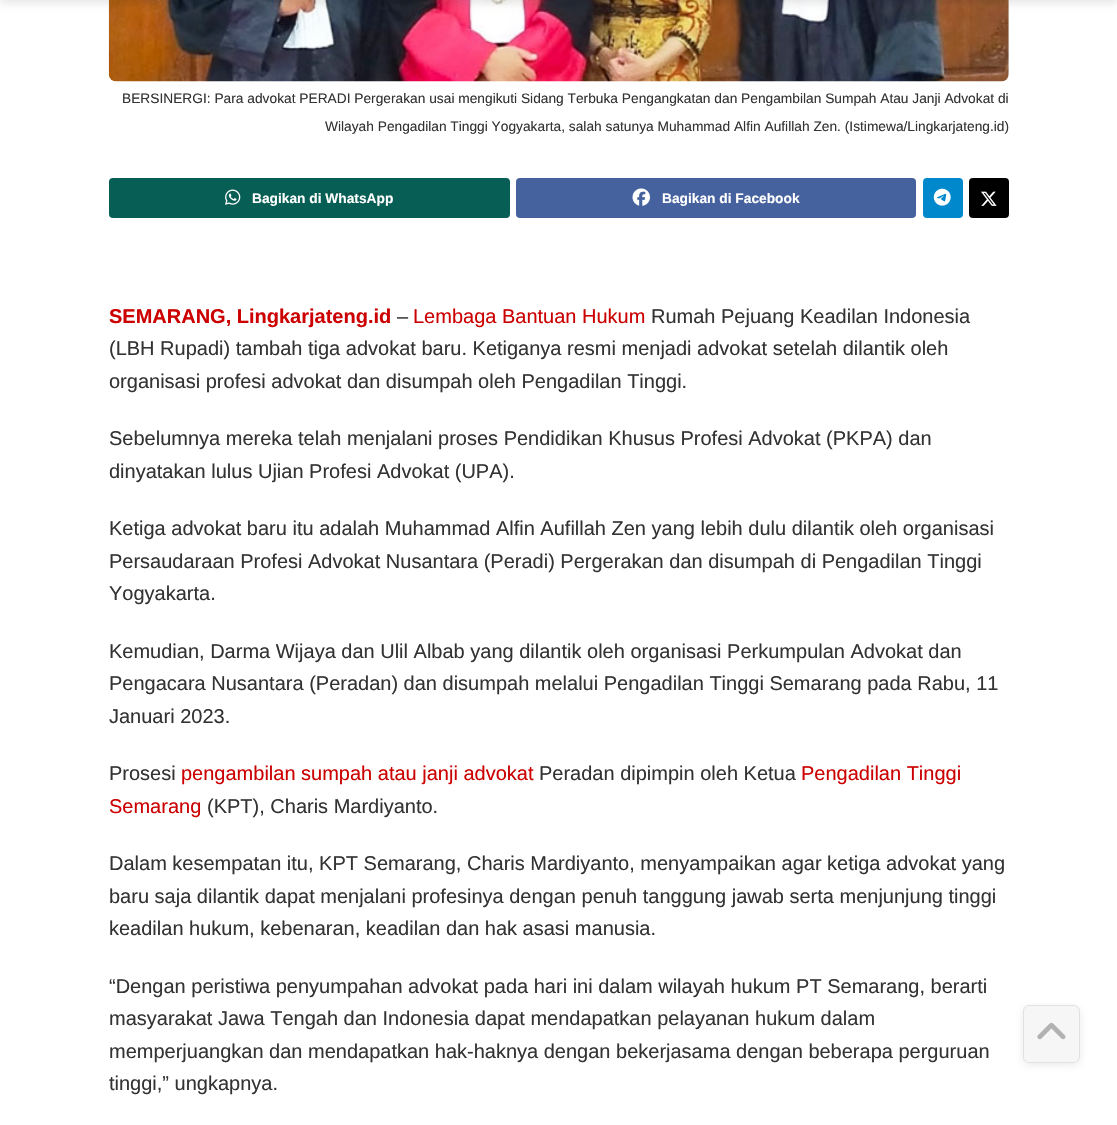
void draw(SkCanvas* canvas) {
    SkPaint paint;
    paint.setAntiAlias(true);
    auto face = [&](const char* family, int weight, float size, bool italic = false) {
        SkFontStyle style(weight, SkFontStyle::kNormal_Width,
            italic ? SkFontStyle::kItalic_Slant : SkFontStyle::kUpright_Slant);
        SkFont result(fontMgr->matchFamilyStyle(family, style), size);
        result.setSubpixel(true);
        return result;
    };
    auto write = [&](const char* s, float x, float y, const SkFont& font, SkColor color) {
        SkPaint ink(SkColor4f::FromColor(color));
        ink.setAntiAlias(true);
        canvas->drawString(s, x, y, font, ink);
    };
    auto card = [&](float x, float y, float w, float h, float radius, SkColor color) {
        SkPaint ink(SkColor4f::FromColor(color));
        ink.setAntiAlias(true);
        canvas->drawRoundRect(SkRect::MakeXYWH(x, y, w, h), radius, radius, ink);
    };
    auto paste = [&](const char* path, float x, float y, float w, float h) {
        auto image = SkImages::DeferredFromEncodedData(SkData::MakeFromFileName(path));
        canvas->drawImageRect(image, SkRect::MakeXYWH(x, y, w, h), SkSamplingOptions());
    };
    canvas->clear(SK_ColorWHITE);
    card(109, -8, 900, 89, 8, SkColorSetRGB(247, 247, 247));
    paste("pic1.png", 109, 76, 896, 5);
    paste("pic2.png", 108, 0, 901, 82);
    paint.setColor(SkColorSetARGB(26, 0, 0, 0));
    paint.setMaskFilter(SkMaskFilter::MakeBlur(kNormal_SkBlurStyle, 4));
    canvas->drawRect(SkRect::MakeXYWH(0, -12, 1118, 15), paint);
    paint.setMaskFilter(nullptr);
    auto kFont1 = face("Liberation Sans", 400, 13.75f);
    write("BERSINERGI: Para advokat PERADI Pergerakan usai mengikuti Sidang Terbuka Pengangkatan dan Pengambilan Sumpah Atau Janji Advokat di", 122, 103, kFont1, SkColorSetRGB(51, 51, 51));
    write("Wilayah Pengadilan Tinggi Yogyakarta, salah satunya Muhammad Alfin Aufillah Zen. (Istimewa/Lingkarjateng.id)", 325, 131, kFont1, SkColorSetRGB(51, 51, 51));
    card(109, 178, 401, 40, 4, SkColorSetRGB(7, 94, 84));
    paste("pic3.png", 225, 189, 16, 16);
    auto kFont2 = face("Liberation Sans", 700, 13.75f);
    write("Bagikan di WhatsApp", 252, 203, kFont2, SK_ColorWHITE);
    card(516, 178, 400, 40, 4, SkColorSetRGB(69, 98, 159));
    paste("pic4.png", 632, 188, 18, 18);
    write("Bagikan di Facebook", 662, 203, kFont2, SK_ColorWHITE);
    card(923, 178, 40, 40, 4, SkColorSetRGB(0, 136, 204));
    paste("pic5.png", 933, 188, 18, 18);
    card(969, 178, 40, 40, 4, SK_ColorBLACK);
    paste("pic6.png", 981, 191, 16, 15);
    auto kFont3 = face("Liberation Sans", 700, 20);
    write("SEMARANG, Lingkarjateng.id", 109, 323, kFont3, SkColorSetRGB(204, 0, 0));
    auto kFont4 = face("Liberation Sans", 400, 20);
    write("–", 397, 323, kFont4, SkColorSetRGB(51, 51, 51));
    write("Lembaga Bantuan Hukum", 413, 323, kFont4, SkColorSetRGB(204, 0, 0));
    write("Rumah Pejuang Keadilan Indonesia", 651, 323, kFont4, SkColorSetRGB(51, 51, 51));
    write("(LBH Rupadi) tambah tiga advokat baru. Ketiganya resmi menjadi advokat setelah dilantik oleh", 109, 355, kFont4, SkColorSetRGB(51, 51, 51));
    write("organisasi profesi advokat dan disumpah oleh Pengadilan Tinggi.", 109, 388, kFont4, SkColorSetRGB(51, 51, 51));
    write("Sebelumnya mereka telah menjalani proses Pendidikan Khusus Profesi Advokat (PKPA) dan", 109, 445, kFont4, SkColorSetRGB(51, 51, 51));
    write("dinyatakan lulus Ujian Profesi Advokat (UPA).", 109, 478, kFont4, SkColorSetRGB(51, 51, 51));
    write("Ketiga advokat baru itu adalah Muhammad Alfin Aufillah Zen yang lebih dulu dilantik oleh organisasi", 109, 535, kFont4, SkColorSetRGB(51, 51, 51));
    write("Persaudaraan Profesi Advokat Nusantara (Peradi) Pergerakan dan disumpah di Pengadilan Tinggi", 109, 568, kFont4, SkColorSetRGB(51, 51, 51));
    write("Yogyakarta.", 109, 600, kFont4, SkColorSetRGB(51, 51, 51));
    write("Kemudian, Darma Wijaya dan Ulil Albab yang dilantik oleh organisasi Perkumpulan Advokat dan", 109, 658, kFont4, SkColorSetRGB(51, 51, 51));
    write("Pengacara Nusantara (Peradan) dan disumpah melalui Pengadilan Tinggi Semarang pada Rabu, 11", 109, 690, kFont4, SkColorSetRGB(51, 51, 51));
    write("Januari 2023.", 109, 723, kFont4, SkColorSetRGB(51, 51, 51));
    write("Prosesi", 109, 780, kFont4, SkColorSetRGB(51, 51, 51));
    write("pengambilan sumpah atau janji advokat", 181, 780, kFont4, SkColorSetRGB(204, 0, 0));
    write("Peradan dipimpin oleh Ketua", 539, 780, kFont4, SkColorSetRGB(51, 51, 51));
    write("Pengadilan Tinggi", 801, 780, kFont4, SkColorSetRGB(204, 0, 0));
    write("Semarang", 109, 813, kFont4, SkColorSetRGB(204, 0, 0));
    write("(KPT), Charis Mardiyanto.", 207, 813, kFont4, SkColorSetRGB(51, 51, 51));
    write("Dalam kesempatan itu, KPT Semarang, Charis Mardiyanto, menyampaikan agar ketiga advokat yang", 109, 870, kFont4, SkColorSetRGB(51, 51, 51));
    write("baru saja dilantik dapat menjalani profesinya dengan penuh tanggung jawab serta menjunjung tinggi", 109, 903, kFont4, SkColorSetRGB(51, 51, 51));
    write("keadilan hukum, kebenaran, keadilan dan hak asasi manusia.", 109, 935, kFont4, SkColorSetRGB(51, 51, 51));
    write("“Dengan peristiwa penyumpahan advokat pada hari ini dalam wilayah hukum PT Semarang, berarti", 109, 993, kFont4, SkColorSetRGB(51, 51, 51));
    write("masyarakat Jawa Tengah dan Indonesia dapat mendapatkan pelayanan hukum dalam", 109, 1025, kFont4, SkColorSetRGB(51, 51, 51));
    write("memperjuangkan dan mendapatkan hak-haknya dengan bekerjasama dengan beberapa perguruan", 109, 1058, kFont4, SkColorSetRGB(51, 51, 51));
    write("tinggi,” ungkapnya.", 109, 1090, kFont4, SkColorSetRGB(51, 51, 51));
    canvas->save();
    canvas->clipPath(SkPathBuilder(SkPathFillType::kEvenOdd).moveTo(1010, 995).lineTo(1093, 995).lineTo(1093, 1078).lineTo(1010, 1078).close().moveTo(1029, 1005).lineTo(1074, 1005).cubicTo(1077.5f, 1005, 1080, 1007.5f, 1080, 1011).lineTo(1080, 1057).cubicTo(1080, 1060.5f, 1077.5f, 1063, 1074, 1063).lineTo(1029, 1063).cubicTo(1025.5f, 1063, 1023, 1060.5f, 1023, 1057).lineTo(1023, 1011).cubicTo(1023, 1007.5f, 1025.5f, 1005, 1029, 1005).close().detach(), true);
    paint.setColor(SkColorSetARGB(26, 51, 51, 51));
    paint.setMaskFilter(SkMaskFilter::MakeBlur(kNormal_SkBlurStyle, 4));
    canvas->drawRoundRect(SkRect::MakeXYWH(1023, 1008, 57, 57), 6, 6, paint);
    paint.setMaskFilter(nullptr);
    canvas->restore();
    card(1023, 1005, 57, 58, 6, SkColorSetARGB(38, 195, 195, 195));
    paint.setStyle(SkPaint::kStroke_Style);
    paint.setStrokeWidth(1);
    paint.setColor(SkColorSetARGB(28, 51, 51, 51));
    canvas->drawRoundRect(SkRect::MakeXYWH(1023.5f, 1005.5f, 56, 57), 5.5f, 5.5f, paint);
    paste("pic7.png", 1037, 1022, 29, 18);
}
